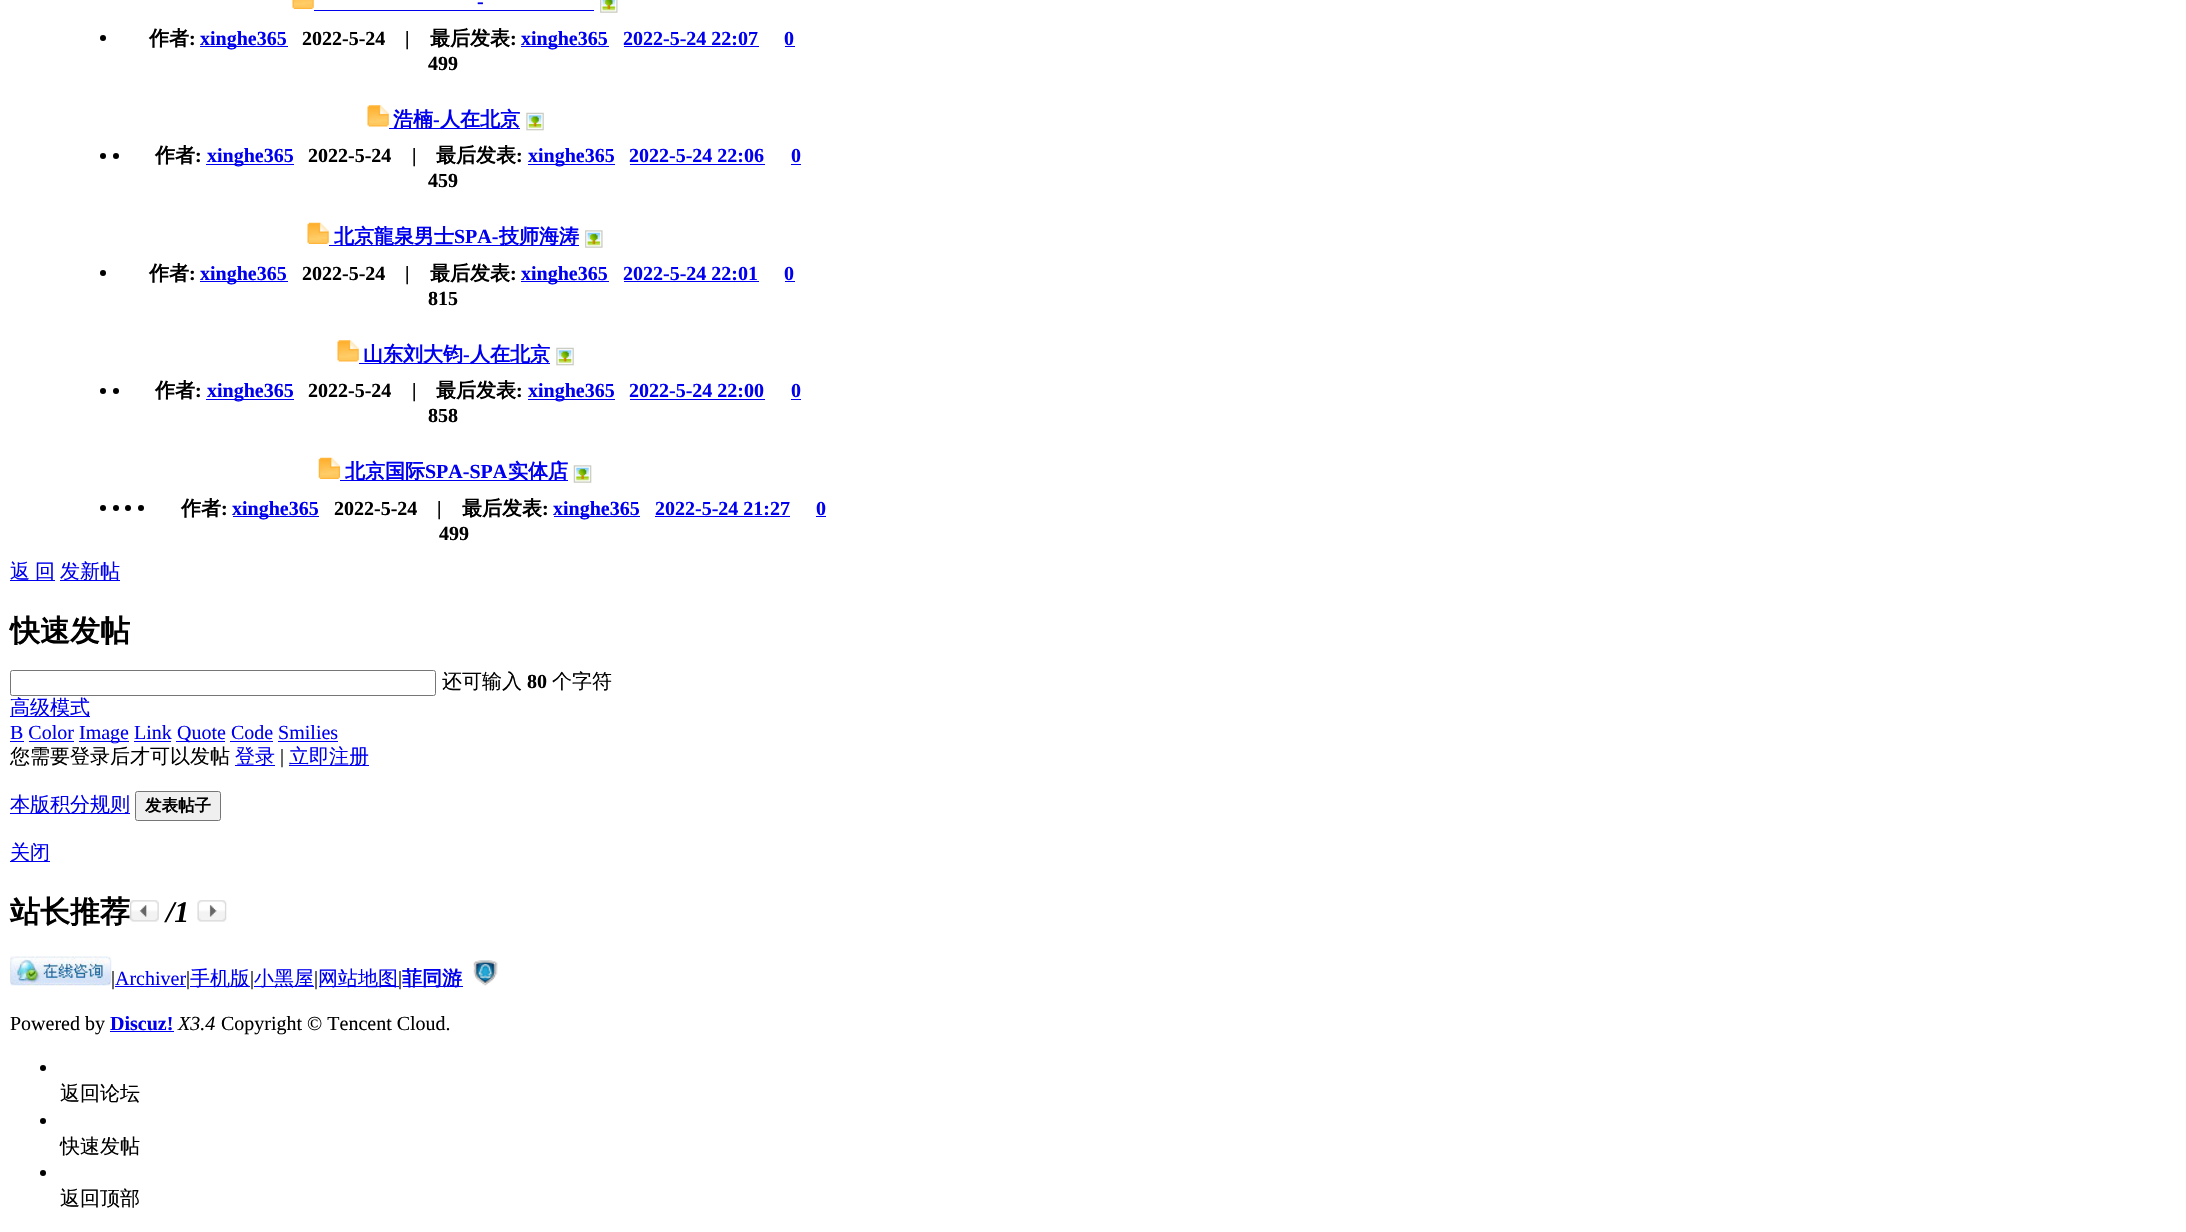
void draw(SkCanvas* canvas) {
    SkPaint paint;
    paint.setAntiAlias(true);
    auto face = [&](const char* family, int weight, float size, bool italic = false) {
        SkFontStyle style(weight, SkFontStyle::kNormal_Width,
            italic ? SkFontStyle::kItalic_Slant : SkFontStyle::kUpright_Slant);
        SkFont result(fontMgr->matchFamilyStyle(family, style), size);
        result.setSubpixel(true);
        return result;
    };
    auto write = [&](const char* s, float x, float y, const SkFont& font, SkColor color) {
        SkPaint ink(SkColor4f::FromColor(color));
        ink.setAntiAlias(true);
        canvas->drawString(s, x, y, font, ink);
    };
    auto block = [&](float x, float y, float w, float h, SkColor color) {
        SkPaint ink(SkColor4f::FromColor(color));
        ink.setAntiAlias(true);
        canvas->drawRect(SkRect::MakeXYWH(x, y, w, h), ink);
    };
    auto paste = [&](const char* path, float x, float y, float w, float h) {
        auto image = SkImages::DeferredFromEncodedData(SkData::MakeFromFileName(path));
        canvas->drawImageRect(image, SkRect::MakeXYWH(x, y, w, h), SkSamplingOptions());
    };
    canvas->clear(SK_ColorWHITE);
    paste("pic1.png", 292, 0, 22, 9);
    auto kFont1 = face("Liberation Serif", 700, 20);
    write("-", 477, 8, kFont1, SkColorSetRGB(0, 0, 238));
    paste("pic2.png", 600, 0, 18, 13);
    block(314, 10, 280, 1, SkColorSetRGB(0, 0, 238));
    paint.setColor(SK_ColorBLACK);
    canvas->drawCircle(103, 38, 3, paint);
    auto kFont2 = face("WenQuanYi Zen Hei", 700, 20);
    write("作者", 149, 45, kFont2, SK_ColorBLACK);
    write(":", 189, 45, kFont1, SK_ColorBLACK);
    block(200, 46, 88, 1, SkColorSetRGB(0, 0, 238));
    write("xinghe365", 200, 45, kFont1, SkColorSetRGB(0, 0, 238));
    write("2022-5-24", 302, 45, kFont1, SK_ColorBLACK);
    write("|", 405, 45, kFont1, SK_ColorBLACK);
    write("最后发表", 430, 45, kFont2, SK_ColorBLACK);
    write(":", 510, 45, kFont1, SK_ColorBLACK);
    block(521, 46, 88, 1, SkColorSetRGB(0, 0, 238));
    write("xinghe365", 521, 45, kFont1, SkColorSetRGB(0, 0, 238));
    write("2022-5-24 22:07", 623, 45, kFont1, SkColorSetRGB(0, 0, 238));
    block(624, 46, 135, 1, SkColorSetRGB(0, 0, 238));
    write("0", 784, 45, kFont1, SkColorSetRGB(0, 0, 238));
    block(785, 46, 10, 1, SkColorSetRGB(0, 0, 238));
    write("499", 428, 70, kFont1, SK_ColorBLACK);
    paste("pic3.png", 367, 105, 22, 22);
    block(389, 128, 131, 1, SkColorSetRGB(0, 0, 238));
    write("浩楠", 393, 126, kFont2, SkColorSetRGB(0, 0, 238));
    write("-", 433, 126, kFont1, SkColorSetRGB(0, 0, 238));
    write("人在北京", 440, 126, kFont2, SkColorSetRGB(0, 0, 238));
    paste("pic4.png", 526, 112, 18, 19);
    canvas->drawCircle(103, 156, 3, paint);
    canvas->drawCircle(116, 156, 3, paint);
    write("作者", 155, 162, kFont2, SK_ColorBLACK);
    write(":", 195, 162, kFont1, SK_ColorBLACK);
    block(206, 164, 88, 1, SkColorSetRGB(0, 0, 238));
    write("xinghe365", 207, 162, kFont1, SkColorSetRGB(0, 0, 238));
    write("2022-5-24", 308, 162, kFont1, SK_ColorBLACK);
    write("|", 412, 162, kFont1, SK_ColorBLACK);
    write("最后发表", 436, 162, kFont2, SK_ColorBLACK);
    write(":", 516, 162, kFont1, SK_ColorBLACK);
    block(528, 164, 87, 1, SkColorSetRGB(0, 0, 238));
    write("xinghe365", 528, 162, kFont1, SkColorSetRGB(0, 0, 238));
    write("2022-5-24 22:06", 629, 162, kFont1, SkColorSetRGB(0, 0, 238));
    block(630, 164, 135, 1, SkColorSetRGB(0, 0, 238));
    write("0", 791, 162, kFont1, SkColorSetRGB(0, 0, 238));
    block(791, 164, 10, 1, SkColorSetRGB(0, 0, 238));
    write("459", 428, 187, kFont1, SK_ColorBLACK);
    paste("pic5.png", 307, 222, 22, 22);
    block(329, 245, 250, 1, SkColorSetRGB(0, 0, 238));
    write("北京龍泉男士", 334, 243, kFont2, SkColorSetRGB(0, 0, 238));
    write("SPA-", 454, 243, kFont1, SkColorSetRGB(0, 0, 238));
    write("技师海涛", 499, 243, kFont2, SkColorSetRGB(0, 0, 238));
    paste("pic6.png", 585, 230, 18, 18);
    canvas->drawCircle(103, 273, 3, paint);
    write("作者", 149, 280, kFont2, SK_ColorBLACK);
    write(":", 189, 280, kFont1, SK_ColorBLACK);
    block(200, 281, 88, 1, SkColorSetRGB(0, 0, 238));
    write("xinghe365", 200, 280, kFont1, SkColorSetRGB(0, 0, 238));
    write("2022-5-24", 302, 280, kFont1, SK_ColorBLACK);
    write("|", 405, 280, kFont1, SK_ColorBLACK);
    write("最后发表", 430, 280, kFont2, SK_ColorBLACK);
    write(":", 510, 280, kFont1, SK_ColorBLACK);
    block(521, 281, 88, 1, SkColorSetRGB(0, 0, 238));
    write("xinghe365", 521, 280, kFont1, SkColorSetRGB(0, 0, 238));
    write("2022-5-24 22:01", 623, 280, kFont1, SkColorSetRGB(0, 0, 238));
    block(624, 281, 135, 1, SkColorSetRGB(0, 0, 238));
    write("0", 784, 280, kFont1, SkColorSetRGB(0, 0, 238));
    block(785, 281, 10, 1, SkColorSetRGB(0, 0, 238));
    write("815", 428, 305, kFont1, SK_ColorBLACK);
    paste("pic3.png", 337, 340, 22, 22);
    block(359, 363, 191, 1, SkColorSetRGB(0, 0, 238));
    write("山东刘大钧", 363, 361, kFont2, SkColorSetRGB(0, 0, 238));
    write("-", 463, 361, kFont1, SkColorSetRGB(0, 0, 238));
    write("人在北京", 470, 361, kFont2, SkColorSetRGB(0, 0, 238));
    paste("pic4.png", 556, 347, 18, 19);
    canvas->drawCircle(103, 391, 3, paint);
    canvas->drawCircle(116, 391, 3, paint);
    write("作者", 155, 397, kFont2, SK_ColorBLACK);
    write(":", 195, 397, kFont1, SK_ColorBLACK);
    block(206, 399, 88, 1, SkColorSetRGB(0, 0, 238));
    write("xinghe365", 207, 397, kFont1, SkColorSetRGB(0, 0, 238));
    write("2022-5-24", 308, 397, kFont1, SK_ColorBLACK);
    write("|", 412, 397, kFont1, SK_ColorBLACK);
    write("最后发表", 436, 397, kFont2, SK_ColorBLACK);
    write(":", 516, 397, kFont1, SK_ColorBLACK);
    block(528, 399, 87, 1, SkColorSetRGB(0, 0, 238));
    write("xinghe365", 528, 397, kFont1, SkColorSetRGB(0, 0, 238));
    write("2022-5-24 22:00", 629, 397, kFont1, SkColorSetRGB(0, 0, 238));
    block(630, 399, 135, 1, SkColorSetRGB(0, 0, 238));
    write("0", 791, 397, kFont1, SkColorSetRGB(0, 0, 238));
    block(791, 399, 10, 1, SkColorSetRGB(0, 0, 238));
    write("858", 428, 422, kFont1, SK_ColorBLACK);
    paste("pic7.png", 318, 457, 22, 22);
    block(340, 480, 228, 1, SkColorSetRGB(0, 0, 238));
    write("北京国际", 345, 478, kFont2, SkColorSetRGB(0, 0, 238));
    write("SPA-SPA", 425, 478, kFont1, SkColorSetRGB(0, 0, 238));
    write("实体店", 508, 478, kFont2, SkColorSetRGB(0, 0, 238));
    paste("pic8.png", 573, 465, 19, 18);
    canvas->drawCircle(103, 508, 3, paint);
    canvas->drawCircle(116, 508, 3, paint);
    canvas->drawCircle(128, 508, 3, paint);
    canvas->drawCircle(141, 508, 3, paint);
    write("作者", 181, 515, kFont2, SK_ColorBLACK);
    write(":", 221, 515, kFont1, SK_ColorBLACK);
    block(233, 516, 86, 1, SkColorSetRGB(0, 0, 238));
    write("xinghe365", 232, 515, kFont1, SkColorSetRGB(0, 0, 238));
    write("2022-5-24", 334, 515, kFont1, SK_ColorBLACK);
    write("|", 437, 515, kFont1, SK_ColorBLACK);
    write("最后发表", 462, 515, kFont2, SK_ColorBLACK);
    write(":", 542, 515, kFont1, SK_ColorBLACK);
    block(554, 516, 86, 1, SkColorSetRGB(0, 0, 238));
    write("xinghe365", 553, 515, kFont1, SkColorSetRGB(0, 0, 238));
    write("2022-5-24 21:27", 655, 515, kFont1, SkColorSetRGB(0, 0, 238));
    block(655, 516, 135, 1, SkColorSetRGB(0, 0, 238));
    write("0", 816, 515, kFont1, SkColorSetRGB(0, 0, 238));
    block(816, 516, 10, 1, SkColorSetRGB(0, 0, 238));
    write("499", 439, 540, kFont1, SK_ColorBLACK);
    auto kFont3 = face("WenQuanYi Zen Hei", 500, 20);
    write("返", 10, 578, kFont3, SkColorSetRGB(0, 0, 238));
    block(10, 580, 45, 1, SkColorSetRGB(0, 0, 238));
    write("回", 35, 578, kFont3, SkColorSetRGB(0, 0, 238));
    block(60, 580, 60, 1, SkColorSetRGB(0, 0, 238));
    write("发新帖", 60, 578, kFont3, SkColorSetRGB(0, 0, 238));
    auto kFont4 = face("WenQuanYi Zen Hei", 700, 30);
    write("快速发帖", 10, 641, kFont4, SK_ColorBLACK);
    paint.setStyle(SkPaint::kStroke_Style);
    paint.setStrokeWidth(1);
    paint.setColor(SkColorSetRGB(118, 118, 118));
    canvas->drawRoundRect(SkRect::MakeXYWH(10.5f, 670.5f, 425, 25), 2, 2, paint);
    write("还可输入", 442, 688, kFont3, SK_ColorBLACK);
    write("80", 527, 688, kFont1, SK_ColorBLACK);
    write("个字符", 552, 688, kFont3, SK_ColorBLACK);
    block(10, 716, 80, 1, SkColorSetRGB(0, 0, 238));
    write("高级模式", 10, 714, kFont3, SkColorSetRGB(0, 0, 238));
    auto kFont5 = face("Liberation Serif", 400, 20);
    write("B Color", 10, 739, kFont5, SkColorSetRGB(0, 0, 238));
    block(10, 741, 14, 1, SkColorSetRGB(0, 0, 238));
    block(79, 741, 50, 1, SkColorSetRGB(0, 0, 238));
    write("Image Link", 79, 739, kFont5, SkColorSetRGB(0, 0, 238));
    block(176, 741, 49, 1, SkColorSetRGB(0, 0, 238));
    write("Quote Code Smilies", 177, 739, kFont5, SkColorSetRGB(0, 0, 238));
    block(29, 741, 45, 1, SkColorSetRGB(0, 0, 238));
    block(134, 741, 37, 1, SkColorSetRGB(0, 0, 238));
    block(230, 741, 43, 1, SkColorSetRGB(0, 0, 238));
    block(278, 741, 60, 1, SkColorSetRGB(0, 0, 238));
    write("您需要登录后才可以发帖", 10, 763, kFont3, SK_ColorBLACK);
    block(235, 765, 40, 1, SkColorSetRGB(0, 0, 238));
    write("登录", 235, 763, kFont3, SkColorSetRGB(0, 0, 238));
    write("|", 280, 763, kFont5, SK_ColorBLACK);
    block(289, 765, 80, 1, SkColorSetRGB(0, 0, 238));
    write("立即注册", 289, 763, kFont3, SkColorSetRGB(0, 0, 238));
    block(10, 813, 120, 1, SkColorSetRGB(0, 0, 238));
    write("本版积分规则", 10, 811, kFont3, SkColorSetRGB(0, 0, 238));
    paint.setStyle(SkPaint::kFill_Style);
    paint.setColor(SkColorSetRGB(239, 239, 239));
    canvas->drawRoundRect(SkRect::MakeXYWH(135.5f, 791.5f, 85, 29), 2, 2, paint);
    paint.setStyle(SkPaint::kStroke_Style);
    paint.setColor(SkColorSetRGB(118, 118, 118));
    canvas->drawRoundRect(SkRect::MakeXYWH(135.5f, 791.5f, 85, 29), 2, 2, paint);
    auto kFont6 = face("WenQuanYi Zen Hei", 700, 16.5f);
    write("发表帖子", 145, 811, kFont6, SK_ColorBLACK);
    block(10, 861, 40, 1, SkColorSetRGB(0, 0, 238));
    write("关闭", 10, 859, kFont3, SkColorSetRGB(0, 0, 238));
    write("站长推荐", 10, 922, kFont4, SK_ColorBLACK);
    paste("pic9.png", 130, 900, 29, 22);
    auto kFont7 = face("Liberation Serif", 700, 30, true);
    write("/1", 166, 922, kFont7, SK_ColorBLACK);
    paste("pic10.png", 197, 900, 30, 22);
    paste("pic11.png", 10, 956, 102, 30);
    write("|", 111, 985, kFont5, SK_ColorBLACK);
    write("Archiver", 115, 985, kFont5, SkColorSetRGB(0, 0, 238));
    block(115, 986, 71, 1, SkColorSetRGB(0, 0, 238));
    write("|", 186, 985, kFont5, SK_ColorBLACK);
    block(190, 986, 60, 1, SkColorSetRGB(0, 0, 238));
    write("手机版", 190, 985, kFont3, SkColorSetRGB(0, 0, 238));
    write("|", 250, 985, kFont5, SK_ColorBLACK);
    block(254, 986, 60, 1, SkColorSetRGB(0, 0, 238));
    write("小黑屋", 254, 985, kFont3, SkColorSetRGB(0, 0, 238));
    write("|", 314, 985, kFont5, SK_ColorBLACK);
    block(319, 986, 80, 1, SkColorSetRGB(0, 0, 238));
    write("网站地图", 318, 985, kFont3, SkColorSetRGB(0, 0, 238));
    write("|", 398, 985, kFont5, SK_ColorBLACK);
    block(403, 986, 60, 1, SkColorSetRGB(0, 0, 238));
    write("菲同游", 402, 985, kFont2, SkColorSetRGB(0, 0, 238));
    paste("pic12.png", 473, 960, 25, 26);
    write("Powered by", 10, 1030, kFont5, SK_ColorBLACK);
    write("Discuz!", 110, 1030, kFont1, SkColorSetRGB(0, 0, 238));
    block(110, 1031, 64, 1, SkColorSetRGB(0, 0, 238));
    auto kFont8 = face("Liberation Serif", 400, 20, true);
    write("X3.4", 178, 1030, kFont8, SK_ColorBLACK);
    write("Copyright © Tencent Cloud.", 221, 1030, kFont5, SK_ColorBLACK);
    paint.setStyle(SkPaint::kFill_Style);
    paint.setColor(SK_ColorBLACK);
    canvas->drawCircle(43, 1068, 3, paint);
    write("返回论坛", 60, 1100, kFont3, SK_ColorBLACK);
    canvas->drawCircle(43, 1121, 3, paint);
    write("快速发帖", 60, 1153, kFont3, SK_ColorBLACK);
    canvas->drawCircle(43, 1173, 3, paint);
    write("返回顶部", 60, 1205, kFont3, SK_ColorBLACK);
}
